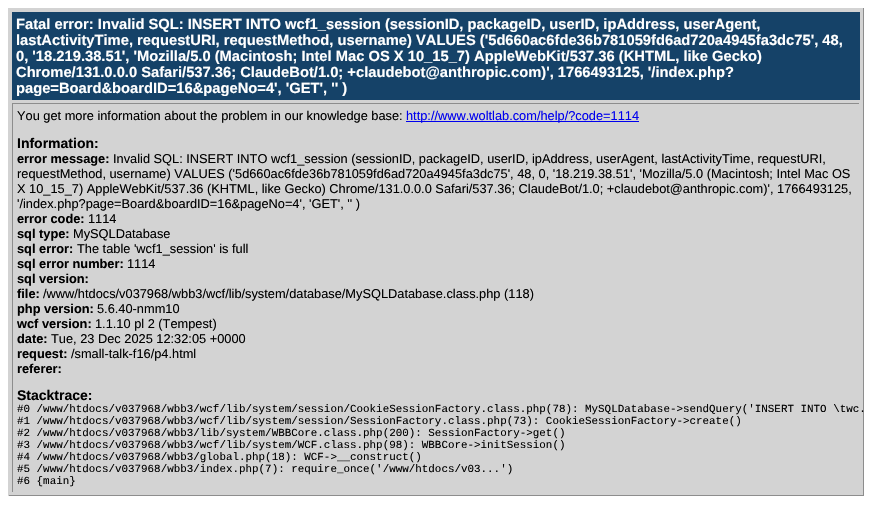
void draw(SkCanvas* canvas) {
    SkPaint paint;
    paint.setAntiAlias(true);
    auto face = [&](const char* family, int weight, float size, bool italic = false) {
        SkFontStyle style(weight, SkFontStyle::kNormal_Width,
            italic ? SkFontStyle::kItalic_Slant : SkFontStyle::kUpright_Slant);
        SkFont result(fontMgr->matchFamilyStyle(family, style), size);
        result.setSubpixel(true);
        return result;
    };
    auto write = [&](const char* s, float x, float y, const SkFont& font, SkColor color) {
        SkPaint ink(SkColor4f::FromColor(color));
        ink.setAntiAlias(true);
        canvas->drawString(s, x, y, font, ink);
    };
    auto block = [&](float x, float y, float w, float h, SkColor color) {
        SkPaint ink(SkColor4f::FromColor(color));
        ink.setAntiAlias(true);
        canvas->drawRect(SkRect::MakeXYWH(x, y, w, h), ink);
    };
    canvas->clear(SK_ColorWHITE);
    block(9, 8, 854, 487, SkColorSetRGB(211, 211, 211));
    block(863, 8, 1, 488, SkColorSetRGB(141, 141, 141));
    block(8, 495, 856, 1, SkColorSetRGB(141, 141, 141));
    block(8, 8, 1, 488, SkColorSetRGB(211, 211, 211));
    block(12, 12, 848, 88, SkColorSetRGB(21, 66, 104));
    auto kFont1 = face("Liberation Sans", 700, 14.72f);
    write("Fatal error: Invalid SQL: INSERT INTO wcf1_session (sessionID, packageID, userID, ipAddress, userAgent,", 16, 29, kFont1, SK_ColorWHITE);
    write("lastActivityTime, requestURI, requestMethod, username) VALUES ('5d660ac6fde36b781059fd6ad720a4945fa3dc75', 48,", 16, 45, kFont1, SK_ColorWHITE);
    write("0, '18.219.38.51', 'Mozilla/5.0 (Macintosh; Intel Mac OS X 10_15_7) AppleWebKit/537.36 (KHTML, like Gecko)", 16, 61, kFont1, SK_ColorWHITE);
    write("Chrome/131.0.0.0 Safari/537.36; ClaudeBot/1.0; +claudebot@anthropic.com)', 1766493125, '/index.php?", 16, 77, kFont1, SK_ColorWHITE);
    write("page=Board&boardID=16&pageNo=4', 'GET', '' )", 16, 93, kFont1, SK_ColorWHITE);
    block(12, 103, 848, 1, SkColorSetRGB(141, 141, 141));
    block(859, 103, 1, 1, SkColorSetRGB(211, 211, 211));
    block(12, 103, 1, 389, SkColorSetRGB(141, 141, 141));
    auto kFont2 = face("Liberation Sans", 400, 12.8f);
    write("You get more information about the problem in our knowledge base:", 17, 120, kFont2, SK_ColorBLACK);
    block(406, 121, 233, 1, SkColorSetRGB(0, 0, 238));
    write("http://www.woltlab.com/help/?code=1114", 406, 120, kFont2, SkColorSetRGB(0, 0, 238));
    auto kFont3 = face("Liberation Sans", 700, 14);
    write("Information:", 17, 148, kFont3, SK_ColorBLACK);
    auto kFont4 = face("Liberation Sans", 700, 12.8f);
    write("error message:", 17, 163, kFont4, SK_ColorBLACK);
    write("Invalid SQL: INSERT INTO wcf1_session (sessionID, packageID, userID, ipAddress, userAgent, lastActivityTime, requestURI,", 113, 163, kFont2, SK_ColorBLACK);
    write("requestMethod, username) VALUES ('5d660ac6fde36b781059fd6ad720a4945fa3dc75', 48, 0, '18.219.38.51', 'Mozilla/5.0 (Macintosh; Intel Mac OS", 17, 178, kFont2, SK_ColorBLACK);
    write("X 10_15_7) AppleWebKit/537.36 (KHTML, like Gecko) Chrome/131.0.0.0 Safari/537.36; ClaudeBot/1.0; +claudebot@anthropic.com)', 1766493125,", 17, 193, kFont2, SK_ColorBLACK);
    write("'/index.php?page=Board&boardID=16&pageNo=4', 'GET', '' )", 17, 208, kFont2, SK_ColorBLACK);
    write("error code:", 17, 223, kFont4, SK_ColorBLACK);
    write("1114", 88, 223, kFont2, SK_ColorBLACK);
    write("sql type:", 17, 238, kFont4, SK_ColorBLACK);
    write("MySQLDatabase", 73, 238, kFont2, SK_ColorBLACK);
    write("sql error:", 17, 253, kFont4, SK_ColorBLACK);
    write("The table 'wcf1_session' is full", 77, 253, kFont2, SK_ColorBLACK);
    write("sql error number:", 17, 268, kFont4, SK_ColorBLACK);
    write("1114", 127, 268, kFont2, SK_ColorBLACK);
    write("sql version:", 17, 283, kFont4, SK_ColorBLACK);
    write("file:", 17, 298, kFont4, SK_ColorBLACK);
    write("/www/htdocs/v037968/wbb3/wcf/lib/system/database/MySQLDatabase.class.php (118)", 43, 298, kFont2, SK_ColorBLACK);
    write("php version:", 17, 313, kFont4, SK_ColorBLACK);
    write("5.6.40-nmm10", 97, 313, kFont2, SK_ColorBLACK);
    write("wcf version:", 17, 328, kFont4, SK_ColorBLACK);
    write("1.1.10 pl 2 (Tempest)", 95, 328, kFont2, SK_ColorBLACK);
    write("date:", 17, 343, kFont4, SK_ColorBLACK);
    write("Tue, 23 Dec 2025 12:32:05 +0000", 51, 343, kFont2, SK_ColorBLACK);
    write("request:", 17, 358, kFont4, SK_ColorBLACK);
    write("/small-talk-f16/p4.html", 71, 358, kFont2, SK_ColorBLACK);
    write("referer:", 17, 373, kFont4, SK_ColorBLACK);
    write("Stacktrace:", 17, 400, kFont3, SK_ColorBLACK);
    auto kFont5 = face("Liberation Mono", 400, 10.88f);
    write("#0 /www/htdocs/v037968/wbb3/wcf/lib/system/session/CookieSessionFactory.class.php(78): MySQLDatabase->sendQuery('INSERT INTO \\twc.", 17, 412, kFont5, SK_ColorBLACK);
    write("#1 /www/htdocs/v037968/wbb3/wcf/lib/system/session/SessionFactory.class.php(73): CookieSessionFactory->create()", 17, 424, kFont5, SK_ColorBLACK);
    write("#2 /www/htdocs/v037968/wbb3/lib/system/WBBCore.class.php(200): SessionFactory->get()", 17, 436, kFont5, SK_ColorBLACK);
    write("#3 /www/htdocs/v037968/wbb3/wcf/lib/system/WCF.class.php(98): WBBCore->initSession()", 17, 448, kFont5, SK_ColorBLACK);
    write("#4 /www/htdocs/v037968/wbb3/global.php(18): WCF->__construct()", 17, 460, kFont5, SK_ColorBLACK);
    write("#5 /www/htdocs/v037968/wbb3/index.php(7): require_once('/www/htdocs/v03...')", 17, 472, kFont5, SK_ColorBLACK);
    write("#6 {main}", 17, 484, kFont5, SK_ColorBLACK);
}
